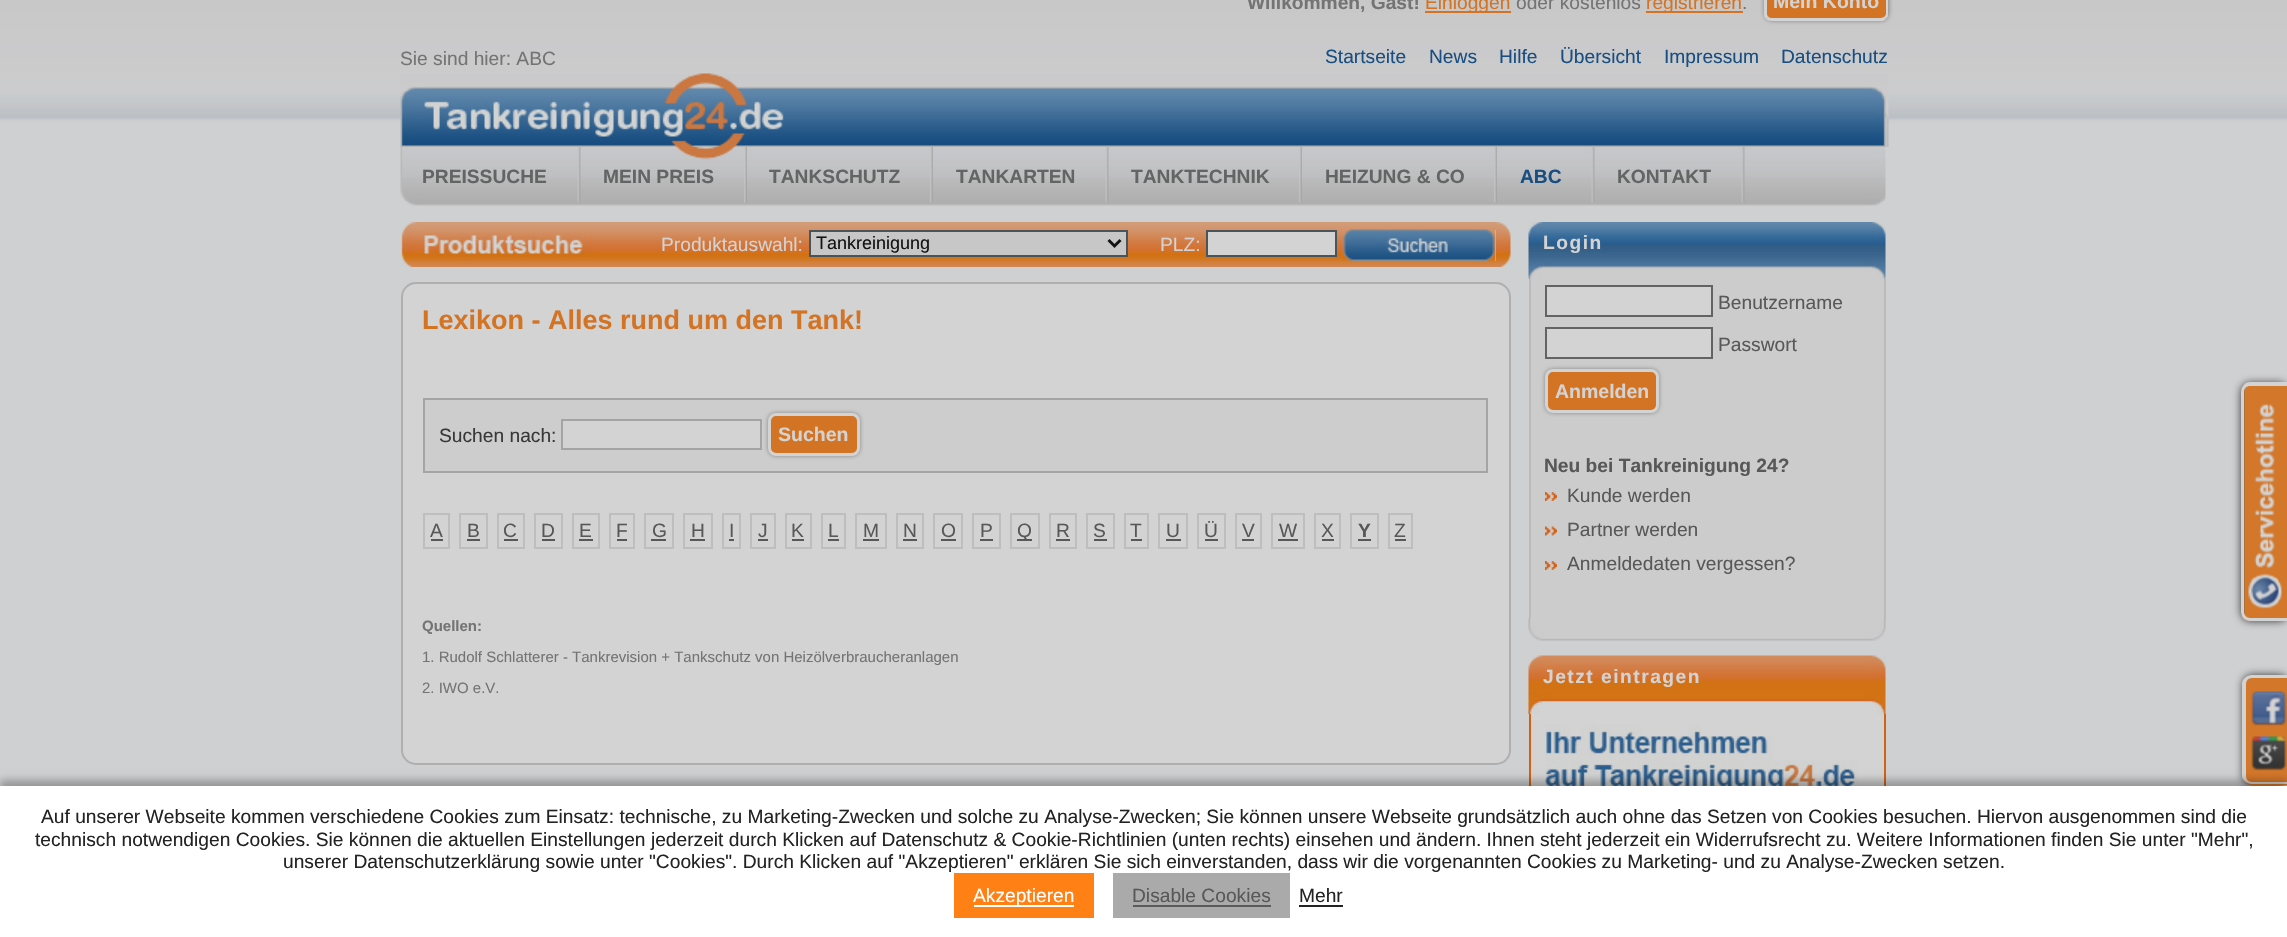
void draw(SkCanvas* canvas) {
    SkPaint paint;
    paint.setAntiAlias(true);
    auto face = [&](const char* family, int weight, float size, bool italic = false) {
        SkFontStyle style(weight, SkFontStyle::kNormal_Width,
            italic ? SkFontStyle::kItalic_Slant : SkFontStyle::kUpright_Slant);
        SkFont result(fontMgr->matchFamilyStyle(family, style), size);
        result.setSubpixel(true);
        return result;
    };
    auto write = [&](const char* s, float x, float y, const SkFont& font, SkColor color) {
        SkPaint ink(SkColor4f::FromColor(color));
        ink.setAntiAlias(true);
        canvas->drawString(s, x, y, font, ink);
    };
    auto writeSpaced = [&](const char* s, float x, float y, const SkFont& font, const SkPaint& ink, float letter, float word) {
        std::vector<SkGlyphID> glyphs(font.countText(s, strlen(s), SkTextEncoding::kUTF8));
        std::vector<float> xs(glyphs.size());
        font.textToGlyphs(s, strlen(s), SkTextEncoding::kUTF8, glyphs);
        font.getXPos(glyphs, xs, x);
        float extra = 0;
        for (size_t i = 0; i < glyphs.size(); i++) {
            xs[i] += extra;
            extra += letter + word * (glyphs[i] == font.unicharToGlyph(' '));
        }
        canvas->drawTextBlob(SkTextBlob::MakeFromPosHGlyphs(glyphs, xs, y, font), 0, 0, ink);
    };
    auto block = [&](float x, float y, float w, float h, SkColor color) {
        SkPaint ink(SkColor4f::FromColor(color));
        ink.setAntiAlias(true);
        canvas->drawRect(SkRect::MakeXYWH(x, y, w, h), ink);
    };
    auto paste = [&](const char* path, float x, float y, float w, float h) {
        auto image = SkImages::DeferredFromEncodedData(SkData::MakeFromFileName(path));
        canvas->drawImageRect(image, SkRect::MakeXYWH(x, y, w, h), SkSamplingOptions());
    };
    canvas->clear(SkColorSetRGB(207, 208, 210));
    paste("pic1.png", 0, 0, 2287, 123);
    auto kFont1 = face("Liberation Sans", 700, 19.2f);
    write("Willkommen, Gast!", 1247, 9, kFont1, SkColorSetRGB(116, 116, 116));
    block(1425, 11, 86, 2, SkColorSetRGB(211, 116, 36));
    auto kFont2 = face("Liberation Sans", 400, 19.2f);
    write("Einloggen", 1425, 9, kFont2, SkColorSetRGB(211, 116, 36));
    write("oder kostenlos", 1516, 9, kFont2, SkColorSetRGB(116, 116, 116));
    block(1646, 11, 97, 2, SkColorSetRGB(211, 116, 36));
    write("registrieren", 1646, 9, kFont2, SkColorSetRGB(211, 116, 36));
    write(".", 1742, 9, kFont2, SkColorSetRGB(116, 116, 116));
    paint.setColor(SkColorSetRGB(135, 135, 135));
    paint.setMaskFilter(SkMaskFilter::MakeBlur(kNormal_SkBlurStyle, 2));
    canvas->drawRoundRect(SkRect::MakeXYWH(1764, -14, 125, 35), 8, 8, paint);
    paint.setMaskFilter(nullptr);
    paint.setColor(SkColorSetRGB(211, 116, 36));
    canvas->drawPath(SkPathBuilder().moveTo(1767, -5).lineTo(1886, -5).lineTo(1886, 13).cubicTo(1886, 16, 1884, 18, 1881, 18).lineTo(1772, 18).cubicTo(1769, 18, 1767, 16, 1767, 13).close().detach(), paint);
    paint.setColor(SkColorSetRGB(211, 211, 211));
    canvas->drawPath(SkPathBuilder().moveTo(1888, -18).lineTo(1888, 14).cubicTo(1888, 16, 1887.5f, 17.5f, 1886, 18.5f).lineTo(1884, 17).cubicTo(1885, 16, 1886, 15, 1886, 14).lineTo(1886, -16).lineTo(1884.5f, -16).close().detach(), paint);
    canvas->drawPath(SkPathBuilder().moveTo(1772, 21).lineTo(1883, 21).lineTo(1886, 19).lineTo(1884, 17).lineTo(1881, 18).lineTo(1771, 18).lineTo(1768, 17).lineTo(1766, 19).cubicTo(1767, 20, 1769, 21, 1772, 21).close().detach(), paint);
    canvas->drawPath(SkPathBuilder().moveTo(1767, -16).lineTo(1768, -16).lineTo(1764, -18).lineTo(1764, 14).cubicTo(1764, 16, 1764.5f, 17.5f, 1766, 19).lineTo(1768.5f, 16.5f).cubicTo(1767.5f, 16, 1767, 15, 1767, 14).close().detach(), paint);
    auto kFont3 = face("Liberation Sans", 700, 19.5f);
    write("Mein Konto", 1773, 8, kFont3, SkColorSetRGB(211, 211, 211));
    write("Sie sind hier: ABC", 400, 65, kFont2, SkColorSetRGB(116, 116, 116));
    write("Startseite", 1325, 63, kFont2, SkColorSetRGB(24, 78, 129));
    write("News", 1429, 63, kFont2, SkColorSetRGB(24, 78, 129));
    write("Hilfe", 1499, 63, kFont2, SkColorSetRGB(24, 78, 129));
    write("Übersicht", 1560, 63, kFont2, SkColorSetRGB(24, 78, 129));
    write("Impressum", 1664, 63, kFont2, SkColorSetRGB(24, 78, 129));
    write("Datenschutz", 1781, 63, kFont2, SkColorSetRGB(24, 78, 129));
    paste("pic2.png", 400, 73, 1489, 74);
    paste("pic3.png", 400, 147, 1486, 59);
    paste("pic4.png", 577, 147, 4, 56);
    write("PREISSUCHE", 422, 183, kFont1, SkColorSetRGB(99, 100, 100));
    paste("pic5.png", 744, 147, 3, 56);
    write("MEIN PREIS", 603, 183, kFont1, SkColorSetRGB(99, 100, 100));
    paste("pic6.png", 930, 147, 3, 56);
    write("TANKSCHUTZ", 769, 183, kFont1, SkColorSetRGB(99, 100, 100));
    paste("pic4.png", 1105, 147, 4, 56);
    write("TANKARTEN", 956, 183, kFont1, SkColorSetRGB(99, 100, 100));
    paste("pic6.png", 1299, 147, 3, 56);
    write("TANKTECHNIK", 1131, 183, kFont1, SkColorSetRGB(99, 100, 100));
    paste("pic5.png", 1494, 147, 3, 56);
    write("HEIZUNG & CO", 1325, 183, kFont1, SkColorSetRGB(99, 100, 100));
    paste("pic4.png", 1591, 147, 4, 56);
    write("ABC", 1520, 183, kFont1, SkColorSetRGB(24, 78, 129));
    paste("pic7.png", 1741, 147, 4, 56);
    write("KONTAKT", 1617, 183, kFont1, SkColorSetRGB(99, 100, 100));
    paste("pic8.png", 400, 222, 1111, 45);
    write("Produktauswahl:", 661, 251, kFont2, SkColorSetRGB(211, 211, 211));
    paint.setColor(SkColorSetRGB(199, 199, 199));
    canvas->drawRect(SkRect::MakeXYWH(810, 231, 317, 25), paint);
    paint.setStyle(SkPaint::kStroke_Style);
    paint.setStrokeWidth(2);
    paint.setColor(SkColorSetRGB(74, 84, 91));
    canvas->drawRect(SkRect::MakeXYWH(810, 231, 317, 25), paint);
    paint.setStrokeWidth(3);
    paint.setColor(SkColorSetRGB(20, 20, 20));
    canvas->drawPath(SkPathBuilder().moveTo(1108.5f, 240).lineTo(1114.5f, 246).lineTo(1120.5f, 240).detach(), paint);
    auto kFont4 = face("Liberation Sans", 400, 18);
    write("Tankreinigung", 816, 249, kFont4, SkColorSetRGB(20, 20, 20));
    write("PLZ:", 1160, 251, kFont2, SkColorSetRGB(211, 211, 211));
    paint.setStyle(SkPaint::kFill_Style);
    paint.setColor(SkColorSetRGB(211, 211, 211));
    canvas->drawRect(SkRect::MakeXYWH(1207, 231, 129, 25), paint);
    paint.setStyle(SkPaint::kStroke_Style);
    paint.setStrokeWidth(2);
    paint.setColor(SkColorSetRGB(74, 84, 91));
    canvas->drawRect(SkRect::MakeXYWH(1207, 231, 129, 25), paint);
    block(1495, 230, 1, 31, SkColorSetRGB(211, 211, 211));
    paste("pic9.png", 1342, 229, 154, 32);
    paint.setStyle(SkPaint::kFill_Style);
    paint.setColor(SkColorSetRGB(211, 211, 211));
    canvas->drawRoundRect(SkRect::MakeXYWH(402, 283, 1108, 481), 14, 14, paint);
    paint.setStyle(SkPaint::kStroke_Style);
    paint.setColor(SkColorSetRGB(175, 175, 175));
    canvas->drawRoundRect(SkRect::MakeXYWH(402, 283, 1108, 481), 14, 14, paint);
    auto kFont5 = face("Liberation Sans", 700, 27);
    write("Lexikon - Alles rund um den Tank!", 422, 329, kFont5, SkColorSetRGB(211, 116, 36));
    paint.setStyle(SkPaint::kFill_Style);
    paint.setColor(SkColorSetRGB(205, 205, 205));
    canvas->drawRect(SkRect::MakeXYWH(424, 399, 1063, 73), paint);
    paint.setStyle(SkPaint::kStroke_Style);
    paint.setColor(SkColorSetRGB(164, 164, 164));
    canvas->drawRect(SkRect::MakeXYWH(424, 399, 1063, 73), paint);
    write("Suchen nach:", 439, 442, kFont2, SkColorSetRGB(56, 56, 56));
    paint.setStyle(SkPaint::kFill_Style);
    paint.setColor(SkColorSetRGB(211, 211, 211));
    canvas->drawRect(SkRect::MakeXYWH(562, 420, 199, 29), paint);
    paint.setStyle(SkPaint::kStroke_Style);
    paint.setColor(SkColorSetRGB(164, 164, 164));
    canvas->drawRect(SkRect::MakeXYWH(562, 420, 199, 29), paint);
    paint.setStyle(SkPaint::kFill_Style);
    paint.setColor(SkColorSetRGB(135, 135, 135));
    paint.setMaskFilter(SkMaskFilter::MakeBlur(kNormal_SkBlurStyle, 2));
    canvas->drawRoundRect(SkRect::MakeXYWH(768, 413, 92, 43), 8, 8, paint);
    paint.setMaskFilter(nullptr);
    paint.setColor(SkColorSetRGB(211, 116, 36));
    canvas->drawRoundRect(SkRect::MakeXYWH(769.5f, 414.5f, 89, 40), 6.5f, 6.5f, paint);
    paint.setStyle(SkPaint::kStroke_Style);
    paint.setStrokeWidth(3);
    paint.setColor(SkColorSetRGB(211, 211, 211));
    canvas->drawRoundRect(SkRect::MakeXYWH(769.5f, 414.5f, 89, 40), 6.5f, 6.5f, paint);
    write("Suchen", 778, 441, kFont3, SkColorSetRGB(211, 211, 211));
    paint.setStrokeWidth(2);
    paint.setColor(SkColorSetRGB(190, 190, 190));
    canvas->drawRect(SkRect::MakeXYWH(424, 514, 25, 34), paint);
    write("A", 430, 537, kFont2, SkColorSetRGB(88, 88, 88));
    block(431, 539, 12, 2, SkColorSetRGB(88, 88, 88));
    canvas->drawRect(SkRect::MakeXYWH(460, 514, 27, 34), paint);
    write("B", 467, 537, kFont2, SkColorSetRGB(88, 88, 88));
    block(467, 539, 13, 2, SkColorSetRGB(88, 88, 88));
    canvas->drawRect(SkRect::MakeXYWH(498, 514, 26, 34), paint);
    write("C", 503, 537, kFont2, SkColorSetRGB(88, 88, 88));
    block(504, 539, 14, 2, SkColorSetRGB(88, 88, 88));
    canvas->drawRect(SkRect::MakeXYWH(535, 514, 27, 34), paint);
    write("D", 541, 537, kFont2, SkColorSetRGB(88, 88, 88));
    block(542, 539, 13, 2, SkColorSetRGB(88, 88, 88));
    canvas->drawRect(SkRect::MakeXYWH(573, 514, 26, 34), paint);
    write("E", 579, 537, kFont2, SkColorSetRGB(88, 88, 88));
    block(579, 539, 14, 2, SkColorSetRGB(88, 88, 88));
    canvas->drawRect(SkRect::MakeXYWH(610, 514, 24, 34), paint);
    write("F", 616, 537, kFont2, SkColorSetRGB(88, 88, 88));
    block(617, 539, 10, 2, SkColorSetRGB(88, 88, 88));
    canvas->drawRect(SkRect::MakeXYWH(645, 514, 28, 34), paint);
    write("G", 652, 537, kFont2, SkColorSetRGB(88, 88, 88));
    block(651, 539, 15, 2, SkColorSetRGB(88, 88, 88));
    canvas->drawRect(SkRect::MakeXYWH(684, 514, 28, 34), paint);
    write("H", 691, 537, kFont2, SkColorSetRGB(88, 88, 88));
    block(690, 539, 15, 2, SkColorSetRGB(88, 88, 88));
    canvas->drawRect(SkRect::MakeXYWH(723, 514, 17, 34), paint);
    write("I", 729, 537, kFont2, SkColorSetRGB(88, 88, 88));
    block(729, 539, 5, 2, SkColorSetRGB(88, 88, 88));
    canvas->drawRect(SkRect::MakeXYWH(751, 514, 24, 34), paint);
    write("J", 758, 537, kFont2, SkColorSetRGB(88, 88, 88));
    block(758, 539, 10, 2, SkColorSetRGB(88, 88, 88));
    canvas->drawRect(SkRect::MakeXYWH(786, 514, 25, 34), paint);
    write("K", 791, 537, kFont2, SkColorSetRGB(88, 88, 88));
    block(792, 539, 12, 2, SkColorSetRGB(88, 88, 88));
    canvas->drawRect(SkRect::MakeXYWH(822, 514, 23, 34), paint);
    write("L", 828, 537, kFont2, SkColorSetRGB(88, 88, 88));
    block(828, 539, 11, 2, SkColorSetRGB(88, 88, 88));
    canvas->drawRect(SkRect::MakeXYWH(856, 514, 30, 34), paint);
    write("M", 863, 537, kFont2, SkColorSetRGB(88, 88, 88));
    block(863, 539, 16, 2, SkColorSetRGB(88, 88, 88));
    canvas->drawRect(SkRect::MakeXYWH(897, 514, 26, 34), paint);
    write("N", 903, 537, kFont2, SkColorSetRGB(88, 88, 88));
    block(903, 539, 14, 2, SkColorSetRGB(88, 88, 88));
    canvas->drawRect(SkRect::MakeXYWH(934, 514, 28, 34), paint);
    write("O", 941, 537, kFont2, SkColorSetRGB(88, 88, 88));
    block(941, 539, 15, 2, SkColorSetRGB(88, 88, 88));
    canvas->drawRect(SkRect::MakeXYWH(973, 514, 27, 34), paint);
    write("P", 980, 537, kFont2, SkColorSetRGB(88, 88, 88));
    block(980, 539, 13, 2, SkColorSetRGB(88, 88, 88));
    canvas->drawRect(SkRect::MakeXYWH(1011, 514, 28, 34), paint);
    block(1017, 539, 15, 2, SkColorSetRGB(88, 88, 88));
    write("Q", 1017, 537, kFont2, SkColorSetRGB(88, 88, 88));
    canvas->drawRect(SkRect::MakeXYWH(1050, 514, 26, 34), paint);
    write("R", 1056, 537, kFont2, SkColorSetRGB(88, 88, 88));
    block(1056, 539, 14, 2, SkColorSetRGB(88, 88, 88));
    canvas->drawRect(SkRect::MakeXYWH(1087, 514, 27, 34), paint);
    write("S", 1093, 537, kFont2, SkColorSetRGB(88, 88, 88));
    block(1094, 539, 13, 2, SkColorSetRGB(88, 88, 88));
    canvas->drawRect(SkRect::MakeXYWH(1125, 514, 23, 34), paint);
    write("T", 1130, 537, kFont2, SkColorSetRGB(88, 88, 88));
    block(1131, 539, 11, 2, SkColorSetRGB(88, 88, 88));
    canvas->drawRect(SkRect::MakeXYWH(1159, 514, 28, 34), paint);
    write("U", 1166, 537, kFont2, SkColorSetRGB(88, 88, 88));
    block(1166, 539, 15, 2, SkColorSetRGB(88, 88, 88));
    canvas->drawRect(SkRect::MakeXYWH(1198, 514, 27, 34), paint);
    write("Ü", 1204, 537, kFont2, SkColorSetRGB(88, 88, 88));
    block(1205, 539, 13, 2, SkColorSetRGB(88, 88, 88));
    canvas->drawRect(SkRect::MakeXYWH(1236, 514, 25, 34), paint);
    write("V", 1242, 537, kFont2, SkColorSetRGB(88, 88, 88));
    block(1242, 539, 12, 2, SkColorSetRGB(88, 88, 88));
    canvas->drawRect(SkRect::MakeXYWH(1272, 514, 32, 34), paint);
    write("W", 1279, 537, kFont2, SkColorSetRGB(88, 88, 88));
    block(1278, 539, 20, 2, SkColorSetRGB(88, 88, 88));
    canvas->drawRect(SkRect::MakeXYWH(1315, 514, 25, 34), paint);
    write("X", 1321, 537, kFont2, SkColorSetRGB(88, 88, 88));
    block(1322, 539, 12, 2, SkColorSetRGB(88, 88, 88));
    canvas->drawRect(SkRect::MakeXYWH(1351, 514, 27, 34), paint);
    write("Y", 1358, 537, kFont1, SkColorSetRGB(88, 88, 88));
    block(1358, 539, 13, 2, SkColorSetRGB(88, 88, 88));
    canvas->drawRect(SkRect::MakeXYWH(1389, 514, 23, 34), paint);
    write("Z", 1394, 537, kFont2, SkColorSetRGB(88, 88, 88));
    block(1395, 539, 11, 2, SkColorSetRGB(88, 88, 88));
    auto kFont6 = face("Liberation Sans", 700, 15);
    write("Quellen:", 422, 631, kFont6, SkColorSetRGB(116, 116, 116));
    auto kFont7 = face("Liberation Sans", 400, 15);
    write("1. Rudolf Schlatterer - Tankrevision + Tankschutz von Heizölverbraucheranlagen", 422, 662, kFont7, SkColorSetRGB(116, 116, 116));
    write("2. IWO e.V.", 422, 693, kFont7, SkColorSetRGB(116, 116, 116));
    paste("pic10.png", 1528, 222, 358, 57);
    paint.setStyle(SkPaint::kFill_Style);
    paint.setColor(SkColorSetRGB(211, 211, 211));
    writeSpaced("Login", 1543, 249, kFont1, paint, 1.5f, 0);
    block(1531, 279, 353, 339, SkColorSetRGB(204, 204, 204));
    block(1884, 279, 2, 339, SkColorSetRGB(187, 187, 187));
    block(1529, 279, 2, 339, SkColorSetRGB(187, 187, 187));
    canvas->drawRect(SkRect::MakeXYWH(1546, 286, 166, 30), paint);
    paint.setStyle(SkPaint::kStroke_Style);
    paint.setColor(SkColorSetRGB(99, 99, 99));
    canvas->drawRect(SkRect::MakeXYWH(1546, 286, 166, 30), paint);
    write("Benutzername", 1718, 309, kFont2, SkColorSetRGB(88, 88, 88));
    paint.setStyle(SkPaint::kFill_Style);
    paint.setColor(SkColorSetRGB(211, 211, 211));
    canvas->drawRect(SkRect::MakeXYWH(1546, 328, 166, 30), paint);
    paint.setStyle(SkPaint::kStroke_Style);
    paint.setColor(SkColorSetRGB(99, 99, 99));
    canvas->drawRect(SkRect::MakeXYWH(1546, 328, 166, 30), paint);
    write("Passwort", 1718, 351, kFont2, SkColorSetRGB(88, 88, 88));
    paint.setStyle(SkPaint::kFill_Style);
    paint.setColor(SkColorSetRGB(135, 135, 135));
    paint.setMaskFilter(SkMaskFilter::MakeBlur(kNormal_SkBlurStyle, 2));
    canvas->drawRoundRect(SkRect::MakeXYWH(1545, 369, 114, 44), 8, 8, paint);
    paint.setMaskFilter(nullptr);
    paint.setColor(SkColorSetRGB(211, 116, 36));
    canvas->drawRoundRect(SkRect::MakeXYWH(1546.5f, 370.5f, 111, 41), 6.5f, 6.5f, paint);
    paint.setStyle(SkPaint::kStroke_Style);
    paint.setStrokeWidth(3);
    paint.setColor(SkColorSetRGB(211, 211, 211));
    canvas->drawRoundRect(SkRect::MakeXYWH(1546.5f, 370.5f, 111, 41), 6.5f, 6.5f, paint);
    write("Anmelden", 1555, 398, kFont3, SkColorSetRGB(211, 211, 211));
    write("Neu bei Tankreinigung 24?", 1544, 472, kFont1, SkColorSetRGB(88, 88, 88));
    paste("pic11.png", 1545, 492, 12, 9);
    write("Kunde werden", 1567, 502, kFont2, SkColorSetRGB(88, 88, 88));
    paste("pic12.png", 1545, 526, 12, 10);
    write("Partner werden", 1567, 536, kFont2, SkColorSetRGB(88, 88, 88));
    paste("pic11.png", 1545, 561, 12, 9);
    write("Anmeldedaten vergessen?", 1567, 570, kFont2, SkColorSetRGB(88, 88, 88));
    paste("pic13.png", 1528, 618, 358, 23);
    paste("pic14.png", 1528, 655, 358, 59);
    paint.setStyle(SkPaint::kFill_Style);
    writeSpaced("Jetzt eintragen", 1543, 683, kFont1, paint, 1.5f, 0);
    block(1531, 714, 353, 72, SkColorSetRGB(211, 211, 211));
    block(1884, 714, 2, 72, SkColorSetRGB(211, 97, 20));
    block(1529, 714, 2, 72, SkColorSetRGB(211, 97, 20));
    paste("pic15.png", 1545, 724, 313, 62);
    paint.setColor(SkColorSetRGB(54, 54, 54));
    paint.setMaskFilter(SkMaskFilter::MakeBlur(kNormal_SkBlurStyle, 4));
    canvas->drawRoundRect(SkRect::MakeXYWH(2241, 383, 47, 238), 9, 9, paint);
    paint.setMaskFilter(nullptr);
    paint.setColor(SkColorSetRGB(211, 119, 42));
    canvas->drawPath(SkPathBuilder().moveTo(2250, 383).lineTo(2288, 383).lineTo(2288, 621).lineTo(2250, 621).cubicTo(2245, 621, 2241, 617, 2241, 612).lineTo(2241, 392).cubicTo(2241, 387, 2245, 383, 2250, 383).close().detach(), paint);
    paste("pic16.png", 2241, 389, 41, 227);
    paint.setColor(SkColorSetRGB(211, 211, 211));
    canvas->drawPath(SkPathBuilder(SkPathFillType::kEvenOdd).moveTo(2250, 382).lineTo(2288, 382).lineTo(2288, 621).lineTo(2250, 621).cubicTo(2245, 621, 2241, 617, 2241, 612).lineTo(2241, 392).cubicTo(2241, 387, 2245, 382, 2250, 382).close().moveTo(2250, 386).lineTo(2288, 386).lineTo(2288, 618).lineTo(2250, 618).cubicTo(2247, 618, 2244, 615, 2244, 612).lineTo(2244, 392).cubicTo(2244, 388, 2247, 386, 2250, 386).close().detach(), paint);
    paint.setColor(SkColorSetRGB(54, 54, 54));
    paint.setMaskFilter(SkMaskFilter::MakeBlur(kNormal_SkBlurStyle, 4));
    canvas->drawRoundRect(SkRect::MakeXYWH(2243, 675, 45, 110), 9, 9, paint);
    paint.setMaskFilter(nullptr);
    paint.setColor(SkColorSetRGB(211, 119, 42));
    canvas->drawPath(SkPathBuilder().moveTo(2252, 675).lineTo(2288, 675).lineTo(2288, 785).lineTo(2252, 785).cubicTo(2247, 785, 2243, 781, 2243, 776).lineTo(2243, 684).cubicTo(2243, 679, 2247, 675, 2252, 675).close().detach(), paint);
    paint.setColor(SkColorSetRGB(211, 211, 211));
    canvas->drawPath(SkPathBuilder(SkPathFillType::kEvenOdd).moveTo(2252, 675).lineTo(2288, 675).lineTo(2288, 784).lineTo(2252, 784).cubicTo(2247, 784, 2242, 780, 2242, 776).lineTo(2242, 684).cubicTo(2242, 679, 2247, 675, 2252, 675).close().moveTo(2252, 678).lineTo(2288, 678).lineTo(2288, 782).lineTo(2252, 782).cubicTo(2248, 782, 2246, 779, 2246, 776).lineTo(2246, 684).cubicTo(2246, 681, 2248, 678, 2252, 678).close().detach(), paint);
    paste("pic17.png", 2251, 691, 36, 35);
    paste("pic18.png", 2251, 736, 36, 35);
    paint.setColor(SkColorSetARGB(71, 0, 0, 0));
    paint.setMaskFilter(SkMaskFilter::MakeBlur(kNormal_SkBlurStyle, 4));
    canvas->drawRect(SkRect::MakeXYWH(0, 780, 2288, 152), paint);
    paint.setMaskFilter(nullptr);
    block(0, 786, 2287, 151, SK_ColorWHITE);
    write("Auf unserer Webseite kommen verschiedene Cookies zum Einsatz: technische, zu Marketing-Zwecken und solche zu Analyse-Zwecken; Sie können unsere Webseite grundsätzlich auch ohne das Setzen von Cookies besuchen. Hiervon ausgenommen sind die", 41, 823, kFont2, SkColorSetRGB(35, 35, 35));
    write("technisch notwendigen Cookies. Sie können die aktuellen Einstellungen jederzeit durch Klicken auf Datenschutz & Cookie-Richtlinien (unten rechts) einsehen und ändern. Ihnen steht jederzeit ein Widerrufsrecht zu. Weitere Informationen finden Sie unter \"Mehr\",", 35, 846, kFont2, SkColorSetRGB(35, 35, 35));
    write("unserer Datenschutzerklärung sowie unter \"Cookies\". Durch Klicken auf \"Akzeptieren\" erklären Sie sich einverstanden, dass wir die vorgenannten Cookies zu Marketing- und zu Analyse-Zwecken setzen.", 283, 868, kFont2, SkColorSetRGB(35, 35, 35));
    block(954, 873, 140, 45, SkColorSetRGB(255, 128, 21));
    block(974, 905, 100, 2, SK_ColorWHITE);
    write("Akzeptieren", 973, 902, kFont2, SK_ColorWHITE);
    block(1113, 873, 177, 45, SkColorSetRGB(170, 170, 170));
    write("Disable Cookies", 1132, 902, kFont2, SkColorSetRGB(88, 88, 88));
    block(1133, 905, 138, 2, SkColorSetRGB(90, 90, 90));
    write("Mehr", 1299, 902, kFont2, SkColorSetRGB(35, 35, 35));
    block(1299, 905, 44, 2, SkColorSetRGB(35, 35, 35));
}
